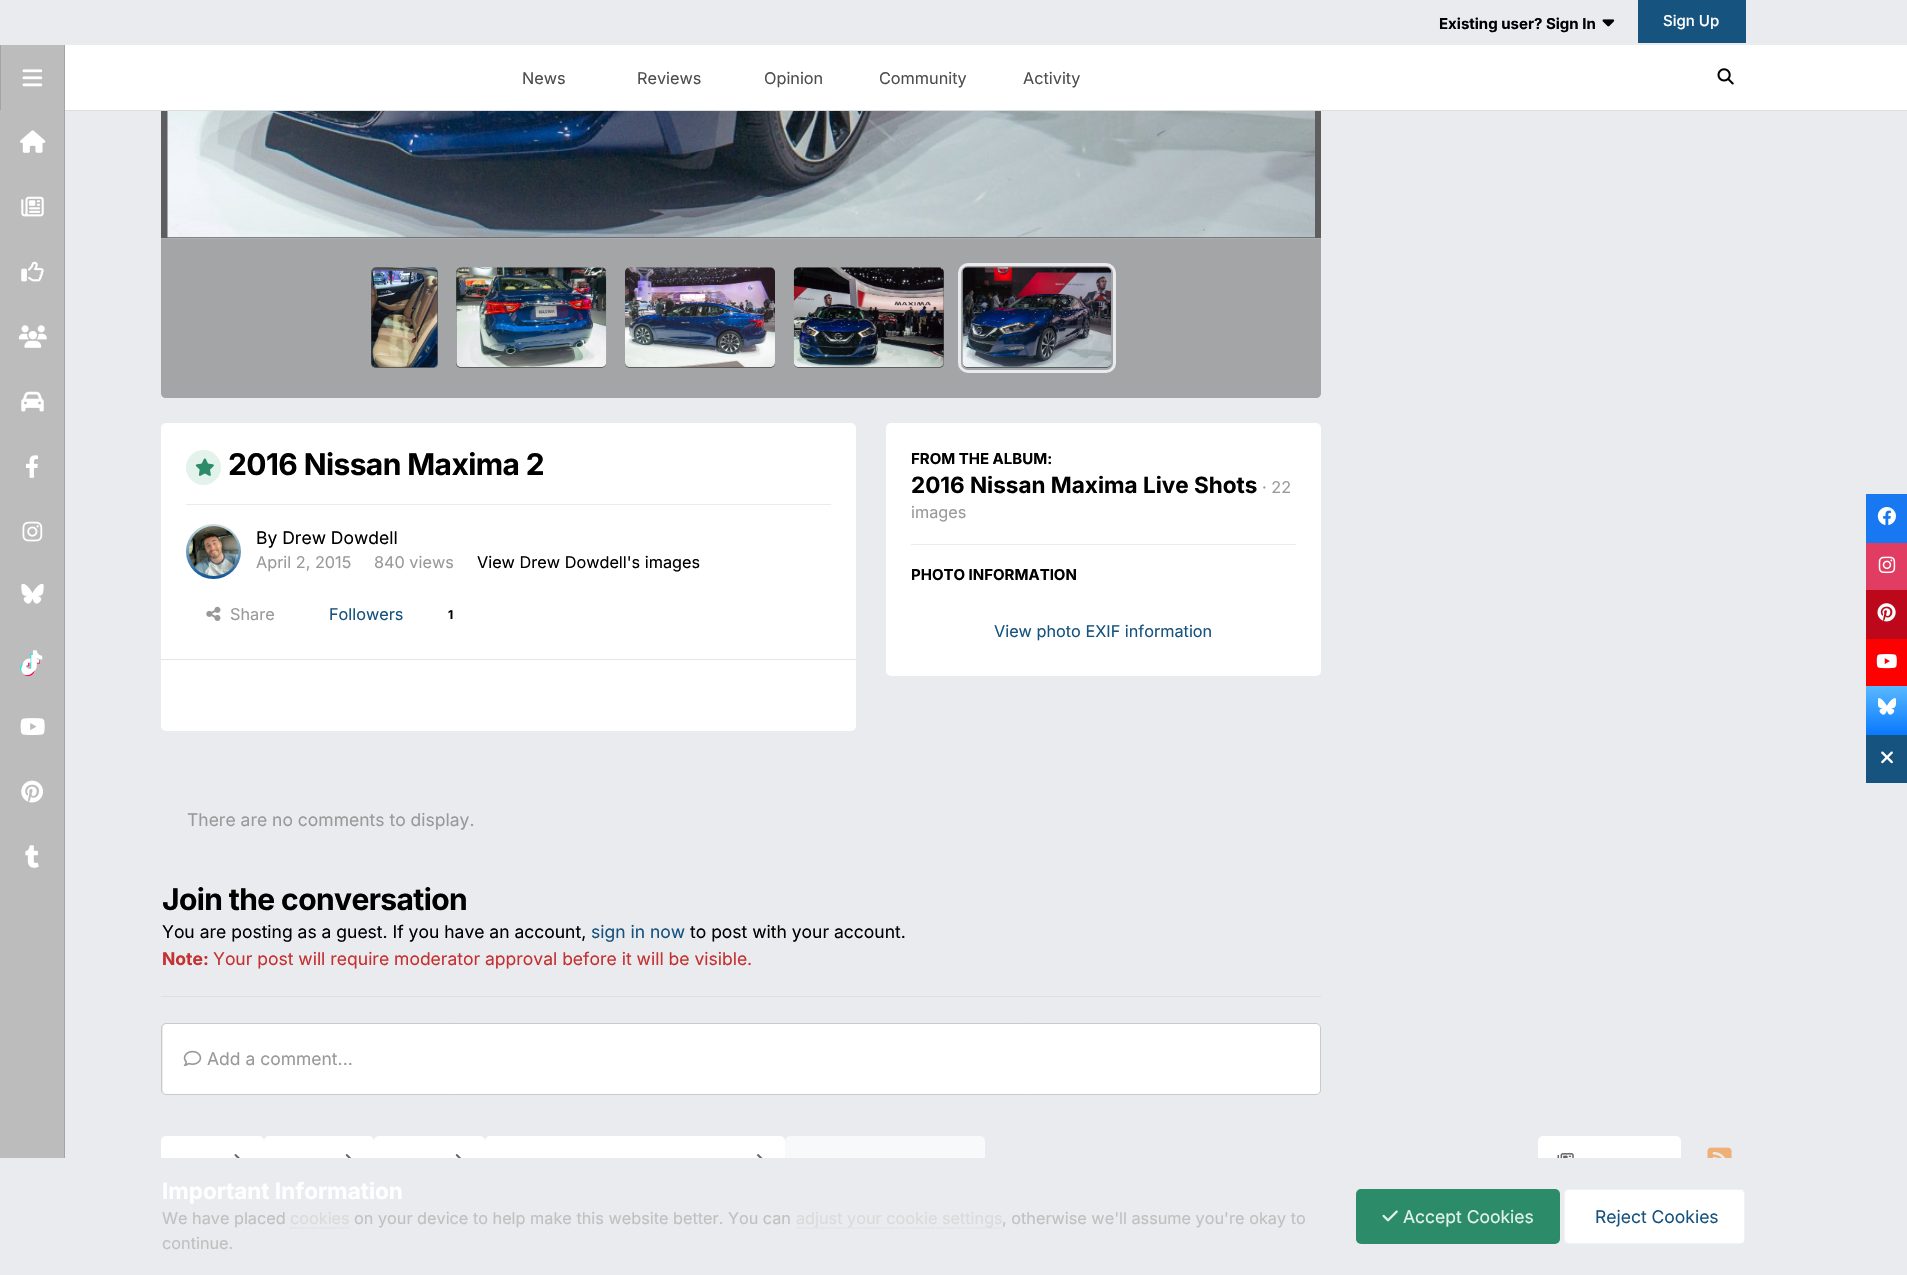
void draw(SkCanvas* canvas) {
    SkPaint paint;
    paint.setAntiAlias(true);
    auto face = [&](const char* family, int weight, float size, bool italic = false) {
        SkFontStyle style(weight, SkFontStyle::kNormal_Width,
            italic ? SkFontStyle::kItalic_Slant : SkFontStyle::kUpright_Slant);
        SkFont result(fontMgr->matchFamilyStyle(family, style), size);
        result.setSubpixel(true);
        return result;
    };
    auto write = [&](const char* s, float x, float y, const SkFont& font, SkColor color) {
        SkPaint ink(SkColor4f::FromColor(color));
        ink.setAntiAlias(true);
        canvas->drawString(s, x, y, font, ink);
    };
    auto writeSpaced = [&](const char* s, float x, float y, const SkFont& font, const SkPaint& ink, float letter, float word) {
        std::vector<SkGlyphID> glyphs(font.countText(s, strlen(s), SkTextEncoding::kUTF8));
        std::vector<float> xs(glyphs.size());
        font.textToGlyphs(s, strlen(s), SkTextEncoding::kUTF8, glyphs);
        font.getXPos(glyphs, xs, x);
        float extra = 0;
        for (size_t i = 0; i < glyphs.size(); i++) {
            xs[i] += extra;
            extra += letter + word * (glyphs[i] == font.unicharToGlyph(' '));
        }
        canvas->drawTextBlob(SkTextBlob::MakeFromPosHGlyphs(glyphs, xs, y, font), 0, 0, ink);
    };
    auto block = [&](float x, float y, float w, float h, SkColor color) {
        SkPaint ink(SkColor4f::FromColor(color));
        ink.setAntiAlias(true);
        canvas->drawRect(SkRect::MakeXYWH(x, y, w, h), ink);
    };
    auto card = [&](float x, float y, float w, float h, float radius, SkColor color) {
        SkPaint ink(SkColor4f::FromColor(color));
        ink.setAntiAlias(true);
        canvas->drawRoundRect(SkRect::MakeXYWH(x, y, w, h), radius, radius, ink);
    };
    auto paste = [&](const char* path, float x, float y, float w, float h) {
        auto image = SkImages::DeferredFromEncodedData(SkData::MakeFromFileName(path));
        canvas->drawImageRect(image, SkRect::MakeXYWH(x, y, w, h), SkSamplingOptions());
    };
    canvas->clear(SkColorSetRGB(233, 235, 238));
    auto kFont1 = face("Inter", 700, 15);
    write("Existing user? Sign In", 1439, 29, kFont1, SK_ColorBLACK);
    paste("pic1.png", 1602, 19, 13, 8);
    block(1638, 0, 108, 43, SkColorSetRGB(22, 83, 126));
    auto kFont2 = face("Inter", 500, 15);
    write("Sign Up", 1663, 26, kFont2, SK_ColorWHITE);
    block(65, 45, 1842, 65, SK_ColorWHITE);
    block(65, 110, 1842, 1, SkColorSetRGB(222, 222, 222));
    block(1, 45, 63, 65, SkColorSetRGB(188, 188, 188));
    block(64, 45, 1, 1113, SkColorSetRGB(164, 164, 164));
    block(0, 45, 1, 65, SkColorSetRGB(164, 164, 164));
    paste("pic2.png", 22, 69, 21, 18);
    block(0, 110, 64, 1048, SkColorSetRGB(188, 188, 188));
    paste("pic3.png", 20, 130, 26, 23);
    paste("pic4.png", 21, 196, 23, 21);
    paste("pic5.png", 21, 261, 23, 21);
    paste("pic6.png", 18, 325, 29, 23);
    paste("pic7.png", 21, 391, 23, 21);
    paste("pic8.png", 26, 455, 12, 23);
    paste("pic9.png", 22, 521, 21, 21);
    paste("pic10.png", 21, 584, 23, 20);
    paste("pic11.png", 20, 653, 20, 24);
    paste("pic12.png", 22, 650, 21, 23);
    paste("pic13.png", 20, 718, 25, 17);
    paste("pic14.png", 21, 780, 22, 23);
    paste("pic15.png", 25, 845, 14, 23);
    auto kFont3 = face("Inter", 400, 16.25f);
    write("News", 522, 84, kFont3, SkColorSetRGB(77, 77, 77));
    write("Reviews", 637, 84, kFont3, SkColorSetRGB(77, 77, 77));
    write("Opinion", 764, 84, kFont3, SkColorSetRGB(77, 77, 77));
    write("Community", 879, 84, kFont3, SkColorSetRGB(77, 77, 77));
    write("Activity", 1023, 84, kFont3, SkColorSetRGB(77, 77, 77));
    paste("pic16.png", 1717, 68, 17, 17);
    block(161, 111, 1160, 127, SkColorSetRGB(93, 94, 96));
    paste("pic17.png", 167, 111, 1148, 127);
    paint.setColor(SkColorSetRGB(163, 165, 167));
    canvas->drawPath(SkPathBuilder().moveTo(161, 238).lineTo(1321, 238).lineTo(1321, 393).cubicTo(1321, 396, 1319, 398, 1316, 398).lineTo(166, 398).cubicTo(163, 398, 161, 396, 161, 393).close().detach(), paint);
    block(161, 238, 1160, 1, SkColorSetRGB(172, 174, 176));
    card(371, 268, 67, 100, 5, SkColorSetRGB(20, 20, 20));
    card(371, 268, 67, 100, 5, SkColorSetARGB(77, 233, 235, 238));
    paste("pic18.png", 371, 267, 67, 101);
    card(456, 268, 150, 100, 5, SkColorSetRGB(20, 20, 20));
    card(456, 268, 150, 100, 5, SkColorSetARGB(77, 233, 235, 238));
    paste("pic19.png", 456, 267, 151, 101);
    card(625, 268, 150, 100, 5, SkColorSetRGB(20, 20, 20));
    card(625, 268, 150, 100, 5, SkColorSetARGB(77, 233, 235, 238));
    paste("pic20.png", 625, 267, 150, 101);
    card(794, 268, 150, 100, 5, SkColorSetRGB(20, 20, 20));
    card(794, 268, 150, 100, 5, SkColorSetARGB(77, 233, 235, 238));
    paste("pic21.png", 793, 267, 151, 101);
    card(963, 268, 148, 100, 5, SkColorSetRGB(20, 20, 20));
    card(963, 268, 148, 100, 5, SkColorSetARGB(77, 233, 235, 238));
    paint.setStyle(SkPaint::kStroke_Style);
    paint.setStrokeWidth(3);
    paint.setColor(SkColorSetRGB(233, 235, 238));
    canvas->drawRoundRect(SkRect::MakeXYWH(959.5f, 264.5f, 155, 107), 8.5f, 8.5f, paint);
    paste("pic22.png", 962, 267, 150, 101);
    card(161, 423, 695, 308, 5, SK_ColorWHITE);
    paint.setStyle(SkPaint::kFill_Style);
    paint.setColor(SkColorSetRGB(227, 243, 236));
    canvas->drawCircle(203.5f, 467.5f, 17.5f, paint);
    paste("pic23.png", 195, 458, 19, 18);
    auto kFont4 = face("Inter", 700, 30);
    paint.setColor(SK_ColorBLACK);
    writeSpaced("2016 Nissan Maxima 2", 228, 475, kFont4, paint, -0.6f, 0);
    block(186, 504, 645, 1, SkColorSetRGB(235, 235, 235));
    {
        const SkColor colors[] = {SkColorSetRGB(208, 224, 227), SkColorSetRGB(11, 83, 148)};
        const float stops[] = {0, 1};
        const SkPoint ends[] = {{214, 524}, {214, 579}};
        paint.setShader(SkGradientShader::MakeLinear(ends, colors, stops, 2, SkTileMode::kClamp));
        paint.setAlpha(255);
    }
    canvas->drawCircle(213.5f, 551.5f, 27.5f, paint);
    paste("pic24.png", 188, 526, 51, 50);
    auto kFont5 = face("Inter", 400, 17.5f);
    write("By Drew Dowdell", 256, 544, kFont5, SK_ColorBLACK);
    write("April 2, 2015", 256, 568, kFont3, SkColorSetRGB(153, 153, 153));
    write("840 views", 374, 568, kFont3, SkColorSetRGB(153, 153, 153));
    write("View Drew Dowdell's images", 477, 568, kFont3, SK_ColorBLACK);
    paste("pic25.png", 206, 606, 15, 15);
    write("Share", 230, 620, kFont3, SkColorSetRGB(153, 153, 153));
    write("Followers", 329, 620, kFont3, SkColorSetRGB(22, 83, 126));
    auto kFont6 = face("Inter", 700, 12);
    write("1", 448, 619, kFont6, SK_ColorBLACK);
    block(161, 659, 695, 1, SkColorSetRGB(230, 230, 230));
    card(886, 423, 435, 253, 5, SK_ColorWHITE);
    write("FROM THE ALBUM:", 911, 464, kFont1, SK_ColorBLACK);
    auto kFont7 = face("Inter", 700, 22.5f);
    write("2016 Nissan Maxima Live Shots", 911, 493, kFont7, SK_ColorBLACK);
    write("· 22", 1262, 493, kFont3, SkColorSetRGB(153, 153, 153));
    write("images", 911, 518, kFont3, SkColorSetRGB(153, 153, 153));
    block(911, 544, 385, 1, SkColorSetRGB(235, 235, 235));
    write("PHOTO INFORMATION", 911, 580, kFont1, SK_ColorBLACK);
    write("View photo EXIF information", 994, 637, kFont3, SkColorSetRGB(22, 83, 126));
    write("There are no comments to display.", 187, 826, kFont5, SkColorSetRGB(153, 153, 153));
    block(161, 996, 1160, 1, SkColorSetRGB(221, 223, 225));
    paint.setShader(nullptr);
    paint.setColor(SK_ColorBLACK);
    writeSpaced("Join the conversation", 162, 910, kFont4, paint, -0.6f, 0);
    write("You are posting as a guest. If you have an account,", 162, 938, kFont5, SK_ColorBLACK);
    write("sign in now", 591, 938, kFont5, SkColorSetRGB(22, 83, 126));
    write("to post with your account.", 690, 938, kFont5, SK_ColorBLACK);
    auto kFont8 = face("Inter", 700, 17.5f);
    write("Note:", 162, 965, kFont8, SkColorSetRGB(197, 48, 48));
    write("Your post will require moderator approval before it will be visible.", 213, 965, kFont5, SkColorSetRGB(197, 48, 48));
    card(163, 1024, 1157, 70, 4, SK_ColorWHITE);
    paint.setStyle(SkPaint::kStroke_Style);
    paint.setStrokeWidth(1);
    paint.setColor(SkColorSetARGB(102, 153, 153, 153));
    canvas->drawRoundRect(SkRect::MakeXYWH(161.5f, 1023.5f, 1159, 71), 4.5f, 4.5f, paint);
    paste("pic26.png", 183, 1050, 19, 17);
    write("Add a comment...", 207, 1065, kFont5, SkColorSetRGB(153, 153, 153));
    card(161, 1136, 103, 49, 5, SK_ColorWHITE);
    paste("pic27.png", 234, 1154, 6, 4);
    card(264, 1136, 110, 49, 5, SK_ColorWHITE);
    paste("pic28.png", 345, 1154, 6, 4);
    card(374, 1136, 111, 49, 5, SK_ColorWHITE);
    paste("pic28.png", 455, 1154, 6, 4);
    card(485, 1136, 300, 49, 5, SK_ColorWHITE);
    paste("pic29.png", 757, 1154, 6, 4);
    card(785, 1136, 200, 49, 5, SkColorSetRGB(248, 249, 250));
    card(1538, 1136, 143, 49, 5, SK_ColorWHITE);
    paste("pic30.png", 1557, 1153, 17, 5);
    paste("pic31.png", 1707, 1147, 25, 11);
    block(1866, 494, 41, 49, SkColorSetRGB(23, 120, 242));
    paste("pic32.png", 1877, 507, 19, 18);
    block(1866, 543, 41, 47, SkColorSetRGB(225, 61, 98));
    paste("pic33.png", 1878, 556, 18, 18);
    block(1866, 590, 41, 49, SkColorSetRGB(189, 8, 28));
    paste("pic34.png", 1877, 603, 19, 19);
    block(1866, 639, 41, 47, SkColorSetRGB(255, 0, 0));
    paste("pic35.png", 1876, 654, 21, 15);
    paint.setStyle(SkPaint::kFill_Style);
    {
        const SkColor colors[] = {SkColorSetRGB(89, 185, 255), SkColorSetRGB(10, 122, 255)};
        const float stops[] = {0, 1};
        const SkPoint ends[] = {{1887, 686}, {1887, 734}};
        paint.setShader(SkGradientShader::MakeLinear(ends, colors, stops, 2, SkTileMode::kClamp));
        paint.setAlpha(255);
    }
    canvas->drawRect(SkRect::MakeXYWH(1866, 686, 41, 49), paint);
    paste("pic36.png", 1878, 698, 18, 17);
    block(1866, 735, 41, 48, SkColorSetRGB(22, 83, 126));
    paste("pic37.png", 1881, 751, 12, 13);
    block(161, 1158, 1520, 27, SkColorSetRGB(233, 235, 238));
    write("Important Information", 162, 1199, kFont7, SK_ColorWHITE);
    write("We have placed", 162, 1224, kFont3, SkColorSetRGB(192, 192, 192));
    write("cookies", 290, 1224, kFont3, SkColorSetRGB(218, 218, 218));
    paint.setStyle(SkPaint::kStroke_Style);
    paint.setStrokeWidth(1.2f);
    paint.setShader(nullptr);
    paint.setColor(SkColorSetRGB(218, 218, 218));
    paint.setPathEffect(SkDashPathEffect::Make({{1.25f, 1.25f}}, 0));
    canvas->drawPath(SkPathBuilder().moveTo(290, 1228).lineTo(350, 1228).detach(), paint);
    paint.setPathEffect(nullptr);
    write("on your device to help make this website better. You can", 354, 1224, kFont3, SkColorSetRGB(192, 192, 192));
    paint.setPathEffect(SkDashPathEffect::Make({{1.25f, 1.25f}}, 0));
    canvas->drawPath(SkPathBuilder().moveTo(796, 1228).lineTo(1002.5f, 1228).detach(), paint);
    paint.setPathEffect(nullptr);
    write("adjust your cookie settings", 796, 1224, kFont3, SkColorSetRGB(218, 218, 218));
    write(", otherwise we'll assume you're okay to", 1002, 1224, kFont3, SkColorSetRGB(192, 192, 192));
    write("continue.", 162, 1249, kFont3, SkColorSetRGB(192, 192, 192));
    card(1356, 1189, 204, 55, 5, SkColorSetRGB(44, 140, 105));
    paste("pic38.png", 1382, 1210, 16, 12);
    write("Accept Cookies", 1403, 1223, kFont5, SkColorSetRGB(227, 243, 236));
    card(1564, 1189, 181, 55, 5, SK_ColorWHITE);
    paint.setStrokeWidth(1);
    paint.setColor(SkColorSetARGB(18, 22, 83, 126));
    canvas->drawRoundRect(SkRect::MakeXYWH(1564.5f, 1189.5f, 180, 54), 4.5f, 4.5f, paint);
    write("Reject Cookies", 1595, 1223, kFont5, SkColorSetRGB(22, 83, 126));
}
